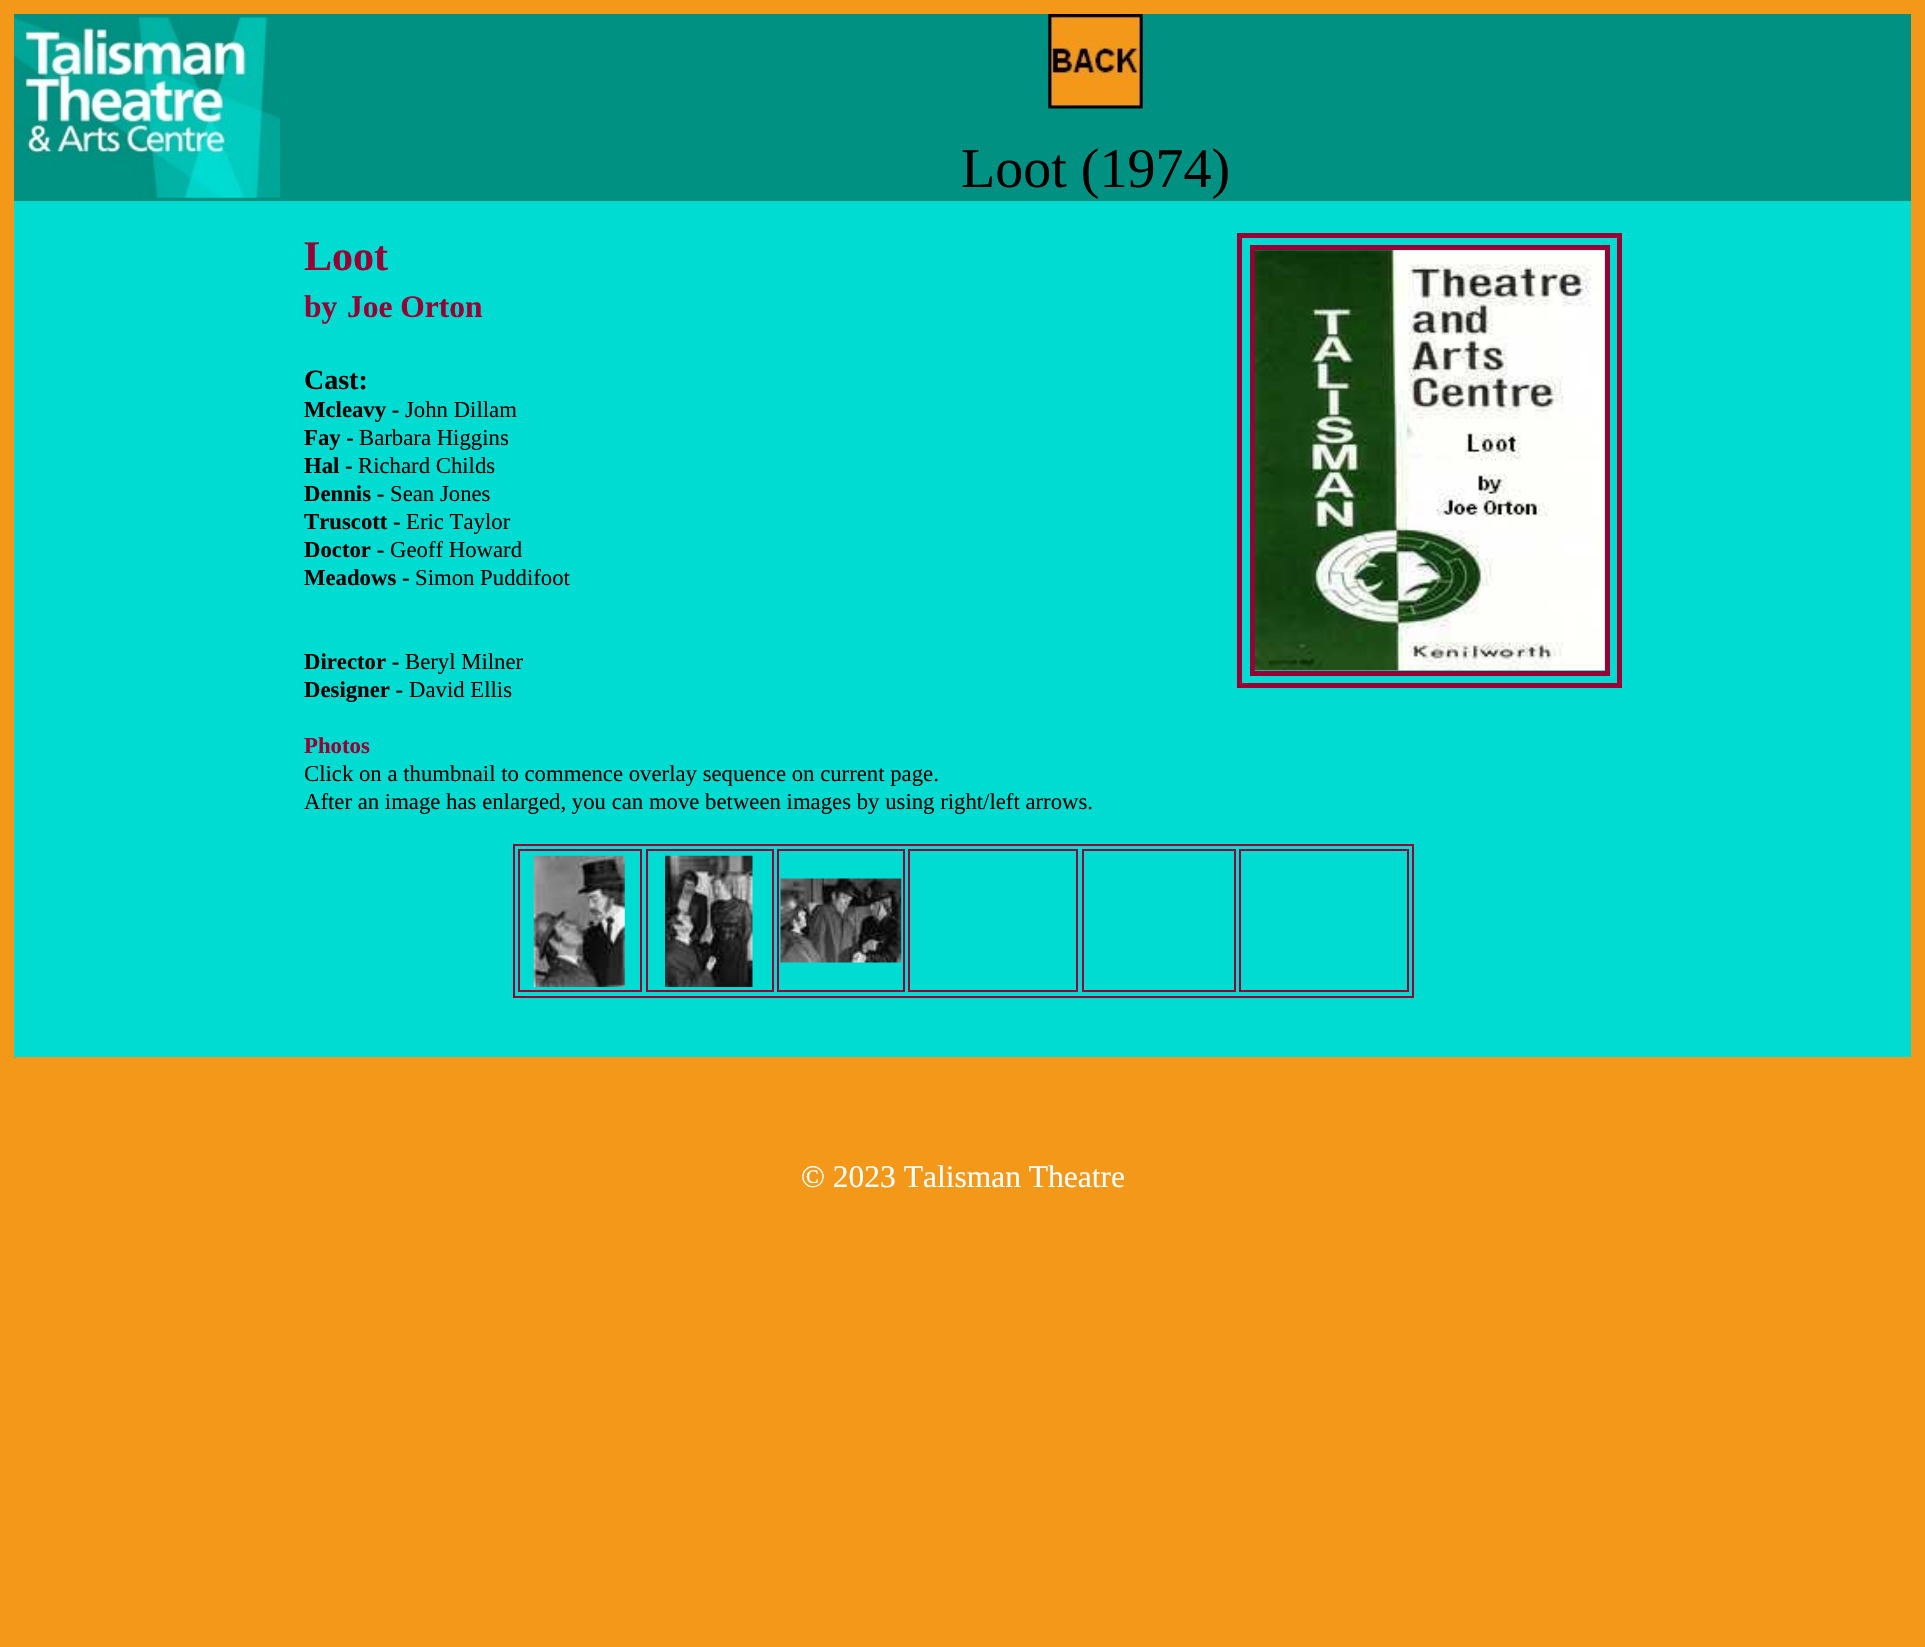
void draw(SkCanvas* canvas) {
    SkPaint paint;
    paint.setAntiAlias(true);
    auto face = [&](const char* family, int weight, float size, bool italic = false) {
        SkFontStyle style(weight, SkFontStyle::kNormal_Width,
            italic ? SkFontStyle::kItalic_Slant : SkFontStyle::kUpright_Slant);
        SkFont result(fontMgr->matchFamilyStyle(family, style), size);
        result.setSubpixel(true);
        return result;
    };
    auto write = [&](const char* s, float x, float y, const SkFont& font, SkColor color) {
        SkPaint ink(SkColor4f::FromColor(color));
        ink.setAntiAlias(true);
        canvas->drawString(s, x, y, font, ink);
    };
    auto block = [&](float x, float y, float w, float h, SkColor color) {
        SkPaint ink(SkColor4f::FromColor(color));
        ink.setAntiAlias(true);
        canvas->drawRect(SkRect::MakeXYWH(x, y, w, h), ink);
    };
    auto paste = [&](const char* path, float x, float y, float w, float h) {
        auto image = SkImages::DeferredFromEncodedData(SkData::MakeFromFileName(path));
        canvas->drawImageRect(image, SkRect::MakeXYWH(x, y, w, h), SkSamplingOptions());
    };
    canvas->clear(SkColorSetRGB(244, 152, 25));
    block(14, 14, 266, 187, SkColorSetRGB(0, 145, 130));
    paste("pic1.png", 14, 17, 266, 181);
    block(280, 14, 1631, 187, SkColorSetRGB(0, 145, 130));
    paste("pic2.png", 1048, 14, 95, 95);
    auto kFont1 = face("Liberation Serif", 400, 56);
    write("Loot (1974)", 961, 187, kFont1, SK_ColorBLACK);
    block(14, 201, 1897, 856, SkColorSetRGB(0, 220, 210));
    auto kFont2 = face("Liberation Serif", 700, 42);
    write("Loot", 304, 270, kFont2, SkColorSetRGB(153, 0, 51));
    paint.setStyle(SkPaint::kStroke_Style);
    paint.setStrokeWidth(5);
    paint.setColor(SkColorSetRGB(153, 0, 51));
    canvas->drawRect(SkRect::MakeXYWH(1239.5f, 235.5f, 380, 450), paint);
    canvas->drawRect(SkRect::MakeXYWH(1252.5f, 247.5f, 355, 426), paint);
    paste("pic3.png", 1254, 250, 351, 421);
    auto kFont3 = face("Liberation Serif", 700, 31.5f);
    write("by", 304, 317, kFont3, SkColorSetRGB(153, 0, 51));
    write("Joe Orton", 347, 317, kFont3, SkColorSetRGB(153, 0, 51));
    auto kFont4 = face("Liberation Serif", 700, 28);
    write("Cast:", 304, 389, kFont4, SK_ColorBLACK);
    auto kFont5 = face("Liberation Serif", 700, 22.75f);
    write("Mcleavy -", 304, 417, kFont5, SK_ColorBLACK);
    auto kFont6 = face("Liberation Serif", 400, 22.75f);
    write("John Dillam", 405, 417, kFont6, SK_ColorBLACK);
    write("Fay -", 304, 445, kFont5, SK_ColorBLACK);
    write("Barbara Higgins", 359, 445, kFont6, SK_ColorBLACK);
    write("Hal -", 304, 473, kFont5, SK_ColorBLACK);
    write("Richard Childs", 358, 473, kFont6, SK_ColorBLACK);
    write("Dennis -", 304, 501, kFont5, SK_ColorBLACK);
    write("Sean Jones", 390, 501, kFont6, SK_ColorBLACK);
    write("Truscott -", 304, 529, kFont5, SK_ColorBLACK);
    write("Eric Taylor", 406, 529, kFont6, SK_ColorBLACK);
    write("Doctor -", 304, 557, kFont5, SK_ColorBLACK);
    write("Geoff Howard", 390, 557, kFont6, SK_ColorBLACK);
    write("Meadows -", 304, 585, kFont5, SK_ColorBLACK);
    write("Simon Puddifoot", 415, 585, kFont6, SK_ColorBLACK);
    write("Director -", 304, 669, kFont5, SK_ColorBLACK);
    write("Beryl Milner", 405, 669, kFont6, SK_ColorBLACK);
    write("Designer -", 304, 697, kFont5, SK_ColorBLACK);
    write("David Ellis", 409, 697, kFont6, SK_ColorBLACK);
    write("Photos", 304, 753, kFont5, SkColorSetRGB(153, 0, 51));
    write("Click on a thumbnail to commence overlay sequence on current page.", 304, 781, kFont6, SK_ColorBLACK);
    write("After an image has enlarged, you can move between images by using right/left arrows.", 304, 809, kFont6, SK_ColorBLACK);
    paint.setStrokeWidth(2);
    canvas->drawRect(SkRect::MakeXYWH(514, 845, 899, 152), paint);
    canvas->drawRect(SkRect::MakeXYWH(519, 850, 122, 141), paint);
    paste("pic4.png", 533, 855, 92, 132);
    canvas->drawRect(SkRect::MakeXYWH(647, 850, 126, 141), paint);
    paste("pic5.png", 665, 855, 88, 132);
    canvas->drawRect(SkRect::MakeXYWH(778, 850, 126, 141), paint);
    paste("pic6.png", 780, 878, 122, 85);
    canvas->drawRect(SkRect::MakeXYWH(909, 850, 168, 141), paint);
    canvas->drawRect(SkRect::MakeXYWH(1083, 850, 152, 141), paint);
    canvas->drawRect(SkRect::MakeXYWH(1240, 850, 168, 141), paint);
    auto kFont7 = face("Liberation Serif", 400, 31.5f);
    write("© 2023 Talisman Theatre", 801, 1187, kFont7, SK_ColorWHITE);
}
